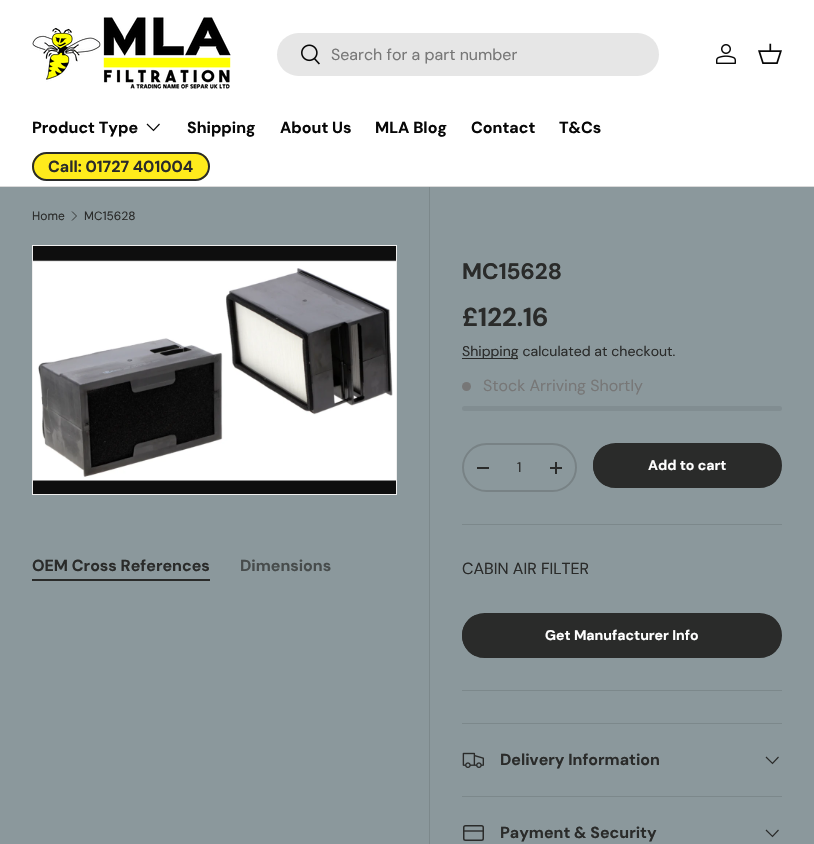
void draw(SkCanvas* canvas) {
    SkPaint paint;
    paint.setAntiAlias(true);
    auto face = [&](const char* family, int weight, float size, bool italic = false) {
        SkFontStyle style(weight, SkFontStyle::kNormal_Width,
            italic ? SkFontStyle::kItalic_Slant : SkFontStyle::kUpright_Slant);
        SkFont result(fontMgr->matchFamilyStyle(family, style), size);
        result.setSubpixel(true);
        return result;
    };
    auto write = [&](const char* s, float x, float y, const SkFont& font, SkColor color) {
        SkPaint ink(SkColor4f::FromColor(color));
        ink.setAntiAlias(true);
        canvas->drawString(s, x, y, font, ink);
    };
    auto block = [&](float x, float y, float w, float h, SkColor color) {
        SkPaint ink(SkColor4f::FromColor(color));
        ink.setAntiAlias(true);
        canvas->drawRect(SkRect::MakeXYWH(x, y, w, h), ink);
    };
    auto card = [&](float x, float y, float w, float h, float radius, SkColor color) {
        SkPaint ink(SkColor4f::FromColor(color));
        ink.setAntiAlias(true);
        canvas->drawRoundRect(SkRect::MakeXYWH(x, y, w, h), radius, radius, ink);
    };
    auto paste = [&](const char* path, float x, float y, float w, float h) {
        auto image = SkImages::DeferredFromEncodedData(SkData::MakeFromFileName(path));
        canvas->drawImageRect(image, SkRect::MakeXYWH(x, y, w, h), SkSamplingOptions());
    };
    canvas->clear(SkColorSetRGB(139, 152, 156));
    block(0, 0, 814, 186, SK_ColorWHITE);
    block(0, 186, 814, 1, SkColorSetRGB(218, 218, 218));
    paste("pic1.png", 32, 17, 199, 72);
    card(277, 33, 382, 43, 21.5f, SkColorSetRGB(230, 230, 230));
    paste("pic2.png", 301, 44, 19, 21);
    auto kFont1 = face("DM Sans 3", 400, 16);
    write("Search for a part number", 331, 60, kFont1, SkColorSetRGB(119, 119, 119));
    paste("pic3.png", 716, 44, 20, 20);
    paste("pic4.png", 758, 43, 24, 21);
    auto kFont2 = face("DM Sans 3", 700, 16);
    write("Product Type", 32, 133, kFont2, SkColorSetRGB(7, 7, 7));
    paint.setStyle(SkPaint::kStroke_Style);
    paint.setStrokeWidth(1.2f);
    paint.setColor(SkColorSetRGB(7, 7, 7));
    canvas->drawPath(SkPathBuilder().moveTo(159.5f, 124).lineTo(153.5f, 130.5f).lineTo(147, 124).detach(), paint);
    write("Shipping", 187, 133, kFont2, SkColorSetRGB(7, 7, 7));
    write("About Us", 280, 133, kFont2, SkColorSetRGB(7, 7, 7));
    write("MLA Blog", 375, 133, kFont2, SkColorSetRGB(7, 7, 7));
    write("Contact", 471, 133, kFont2, SkColorSetRGB(7, 7, 7));
    write("T&Cs", 559, 133, kFont2, SkColorSetRGB(7, 7, 7));
    canvas->save();
    canvas->clipPath(SkPathBuilder().moveTo(46.5f, 152).lineTo(195.5f, 152).cubicTo(203.5f, 152, 210, 158.5f, 210, 166.5f).cubicTo(210, 174.5f, 203.5f, 181, 195.5f, 181).lineTo(46.5f, 181).cubicTo(38.5f, 181, 32, 174.5f, 32, 166.5f).cubicTo(32, 158.5f, 38.5f, 152, 46.5f, 152).close().detach(), true);
    paint.setStyle(SkPaint::kFill_Style);
    {
        const SkColor colors[] = {SkColorSetRGB(226, 210, 42), SkColorSetRGB(255, 235, 28), SkColorSetRGB(255, 235, 28)};
        const float stops[] = {0.6f, 0.6f, 1};
        const SkPoint ends[] = {{-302, 105}, {196, 228}};
        paint.setShader(SkGradientShader::MakeLinear(ends, colors, stops, 3, SkTileMode::kClamp));
        paint.setAlpha(255);
    }
    canvas->drawRect(SkRect::MakeXYWH(32, 154, 176, 25), paint);
    canvas->restore();
    paint.setStyle(SkPaint::kStroke_Style);
    paint.setStrokeWidth(2);
    paint.setShader(nullptr);
    paint.setColor(SkColorSetRGB(42, 43, 42));
    canvas->drawRoundRect(SkRect::MakeXYWH(33, 153, 176, 27), 13.5f, 13.5f, paint);
    write("Call: 01727 401004", 48, 172, kFont2, SkColorSetRGB(42, 43, 42));
    auto kFont3 = face("DM Sans", 400, 12);
    write("Home", 32, 220, kFont3, SkColorSetRGB(42, 43, 42));
    paint.setStrokeWidth(0.9f);
    canvas->drawPath(SkPathBuilder().moveTo(72, 211.5f).lineTo(76.5f, 216).lineTo(72, 220.5f).detach(), paint);
    write("MC15628", 84, 220, kFont3, SkColorSetRGB(42, 43, 42));
    write("OEM Cross References", 32, 571, kFont2, SkColorSetRGB(42, 43, 42));
    block(32, 579, 178, 2, SkColorSetRGB(42, 43, 42));
    write("Dimensions", 240, 571, kFont2, SkColorSetRGB(71, 76, 76));
    paint.setStrokeWidth(1);
    paint.setColor(SkColorSetRGB(238, 238, 238));
    canvas->drawRect(SkRect::MakeXYWH(32.5f, 245.5f, 364, 249), paint);
    paste("pic5.png", 33, 246, 363, 248);
    block(429, 187, 1, 657, SkColorSetRGB(124, 136, 139));
    auto kFont4 = face("DM Sans", 700, 22.5f);
    write("MC15628", 462, 279, kFont4, SkColorSetRGB(42, 43, 42));
    auto kFont5 = face("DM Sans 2", 700, 26);
    write("£122.16", 462, 326, kFont5, SkColorSetRGB(42, 43, 42));
    block(462, 358, 56, 1, SkColorSetRGB(42, 43, 42));
    auto kFont6 = face("DM Sans 2", 400, 14.1f);
    write("Shipping calculated at checkout.", 462, 356, kFont6, SkColorSetRGB(42, 43, 42));
    paint.setStyle(SkPaint::kFill_Style);
    paint.setColor(SkColorSetRGB(119, 119, 119));
    canvas->drawCircle(466.5f, 386.5f, 4.5f, paint);
    write("Stock Arriving Shortly", 483, 391, kFont1, SkColorSetRGB(119, 119, 119));
    card(462, 406, 320, 5, 2.5f, SkColorSetRGB(129, 141, 145));
    paint.setStyle(SkPaint::kStroke_Style);
    paint.setStrokeWidth(2);
    paint.setColor(SkColorSetRGB(120, 130, 133));
    canvas->drawRoundRect(SkRect::MakeXYWH(463, 444, 113, 47), 23.5f, 23.5f, paint);
    block(477, 467, 12, 2, SkColorSetRGB(42, 43, 42));
    write("1", 517, 472, kFont6, SkColorSetRGB(42, 43, 42));
    block(550, 467, 12, 2, SkColorSetRGB(42, 43, 42));
    block(555, 462, 2, 12, SkColorSetRGB(42, 43, 42));
    canvas->save();
    canvas->clipPath(SkPathBuilder().moveTo(615.5f, 443).lineTo(759.5f, 443).cubicTo(772, 443, 782, 453, 782, 465.5f).cubicTo(782, 478, 772, 488, 759.5f, 488).lineTo(615.5f, 488).cubicTo(603, 488, 593, 478, 593, 465.5f).cubicTo(593, 453, 603, 443, 615.5f, 443).close().detach(), true);
    paint.setStyle(SkPaint::kFill_Style);
    {
        const SkColor colors[] = {SkColorSetRGB(82, 83, 82), SkColorSetRGB(42, 43, 42), SkColorSetRGB(42, 43, 42)};
        const float stops[] = {0.6f, 0.6f, 1};
        const SkPoint ends[] = {{236, 399}, {769, 532}};
        paint.setShader(SkGradientShader::MakeLinear(ends, colors, stops, 3, SkTileMode::kClamp));
        paint.setAlpha(255);
    }
    canvas->drawRect(SkRect::MakeXYWH(593, 445, 187, 41), paint);
    canvas->restore();
    paint.setStyle(SkPaint::kStroke_Style);
    paint.setShader(nullptr);
    paint.setColor(SkColorSetRGB(42, 43, 42));
    canvas->drawRoundRect(SkRect::MakeXYWH(594, 444, 187, 43), 21.5f, 21.5f, paint);
    auto kFont7 = face("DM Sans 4", 700, 14.1f);
    write("Add to cart", 648, 470, kFont7, SK_ColorWHITE);
    block(462, 524, 320, 1, SkColorSetRGB(124, 136, 139));
    write("CABIN AIR FILTER", 462, 574, kFont1, SkColorSetRGB(42, 43, 42));
    canvas->save();
    canvas->clipPath(SkPathBuilder().moveTo(484.5f, 613).lineTo(759.5f, 613).cubicTo(772, 613, 782, 623, 782, 635.5f).cubicTo(782, 648, 772, 658, 759.5f, 658).lineTo(484.5f, 658).cubicTo(472, 658, 462, 648, 462, 635.5f).cubicTo(462, 623, 472, 613, 484.5f, 613).close().detach(), true);
    paint.setStyle(SkPaint::kFill_Style);
    {
        const SkColor colors[] = {SkColorSetRGB(82, 83, 82), SkColorSetRGB(42, 43, 42), SkColorSetRGB(42, 43, 42)};
        const float stops[] = {0.6f, 0.6f, 1};
        const SkPoint ends[] = {{-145, 523}, {757, 748}};
        paint.setShader(SkGradientShader::MakeLinear(ends, colors, stops, 3, SkTileMode::kClamp));
        paint.setAlpha(255);
    }
    canvas->drawRect(SkRect::MakeXYWH(462, 615, 318, 41), paint);
    canvas->restore();
    paint.setStyle(SkPaint::kStroke_Style);
    paint.setShader(nullptr);
    paint.setColor(SkColorSetRGB(42, 43, 42));
    canvas->drawRoundRect(SkRect::MakeXYWH(463, 614, 318, 43), 21.5f, 21.5f, paint);
    write("Get Manufacturer Info", 545, 640, kFont7, SK_ColorWHITE);
    block(462, 690, 320, 1, SkColorSetRGB(124, 136, 139));
    block(462, 723, 320, 1, SkColorSetRGB(124, 136, 139));
    block(462, 796, 320, 1, SkColorSetRGB(124, 136, 139));
    paste("pic6.png", 462, 752, 22, 16);
    write("Delivery Information", 500, 765, kFont2, SkColorSetRGB(42, 43, 42));
    paint.setStrokeWidth(1.2f);
    canvas->drawPath(SkPathBuilder().moveTo(778.5f, 757).lineTo(772.5f, 763.5f).lineTo(766, 757).detach(), paint);
    paint.setStrokeWidth(1.5f);
    canvas->drawRoundRect(SkRect::MakeXYWH(463.75f, 825.75f, 19.5f, 14.5f), 1.75f, 1.75f, paint);
    paint.setStrokeWidth(1.4f);
    canvas->drawPath(SkPathBuilder().moveTo(463.5f, 831).lineTo(483, 831).detach(), paint);
    write("Payment & Security", 500, 838, kFont2, SkColorSetRGB(42, 43, 42));
    paint.setStrokeWidth(1.2f);
    canvas->drawPath(SkPathBuilder().moveTo(778.5f, 830).lineTo(772.5f, 836.5f).lineTo(766, 830).detach(), paint);
}
